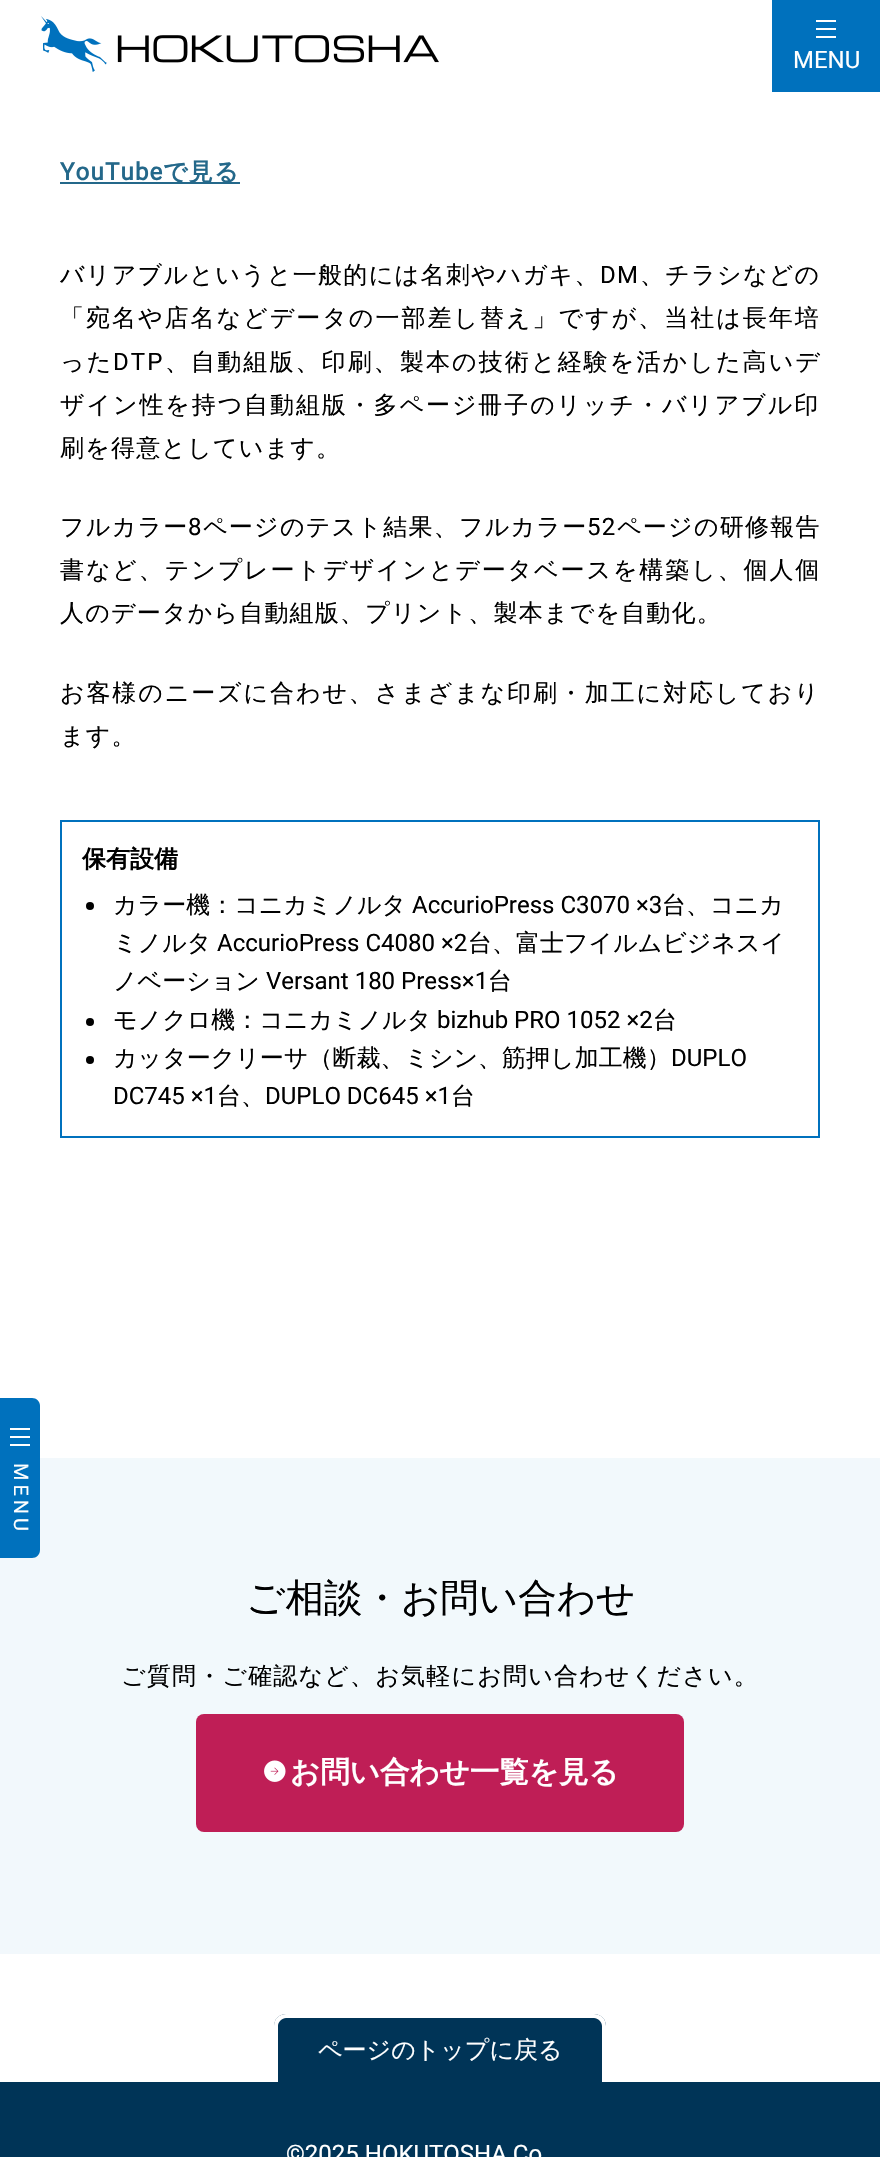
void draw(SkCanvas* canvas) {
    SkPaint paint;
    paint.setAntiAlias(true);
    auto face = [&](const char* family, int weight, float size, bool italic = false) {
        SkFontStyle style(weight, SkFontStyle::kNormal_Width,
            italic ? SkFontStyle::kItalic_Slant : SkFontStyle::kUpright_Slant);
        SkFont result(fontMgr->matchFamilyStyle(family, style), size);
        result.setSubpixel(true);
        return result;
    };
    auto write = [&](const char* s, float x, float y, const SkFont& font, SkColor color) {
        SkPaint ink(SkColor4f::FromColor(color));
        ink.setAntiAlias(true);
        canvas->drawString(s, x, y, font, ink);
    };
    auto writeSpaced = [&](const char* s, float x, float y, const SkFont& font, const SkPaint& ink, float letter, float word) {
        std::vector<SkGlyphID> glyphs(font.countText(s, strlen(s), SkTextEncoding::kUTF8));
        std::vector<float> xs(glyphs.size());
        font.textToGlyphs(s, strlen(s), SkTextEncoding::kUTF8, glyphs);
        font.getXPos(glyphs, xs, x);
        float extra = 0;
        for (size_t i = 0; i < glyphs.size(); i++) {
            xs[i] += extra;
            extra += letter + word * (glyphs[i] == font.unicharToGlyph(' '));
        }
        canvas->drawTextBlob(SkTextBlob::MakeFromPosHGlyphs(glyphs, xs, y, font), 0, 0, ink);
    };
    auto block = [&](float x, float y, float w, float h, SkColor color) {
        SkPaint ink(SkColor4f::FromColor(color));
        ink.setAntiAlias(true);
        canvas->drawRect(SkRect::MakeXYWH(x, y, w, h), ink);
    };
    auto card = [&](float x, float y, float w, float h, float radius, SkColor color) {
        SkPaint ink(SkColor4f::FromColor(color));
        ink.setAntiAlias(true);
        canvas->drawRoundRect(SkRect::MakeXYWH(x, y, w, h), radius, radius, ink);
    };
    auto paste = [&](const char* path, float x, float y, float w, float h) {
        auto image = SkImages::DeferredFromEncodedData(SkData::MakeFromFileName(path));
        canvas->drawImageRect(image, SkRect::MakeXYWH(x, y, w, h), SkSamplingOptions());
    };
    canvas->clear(SK_ColorWHITE);
    auto kFont1 = face("Roboto", 700, 24);
    paint.setColor(SkColorSetRGB(36, 104, 138));
    writeSpaced("YouTube", 60, 180, kFont1, paint, 1.2f, 0);
    block(60, 182, 180, 2, SkColorSetRGB(36, 104, 138));
    auto kFont2 = face("WenQuanYi Zen Hei", 700, 24);
    writeSpaced("で見る", 163, 180, kFont2, paint, 1.2f, 0);
    auto kFont3 = face("WenQuanYi Zen Hei", 500, 24);
    paint.setColor(SK_ColorBLACK);
    writeSpaced("バリアブルというと一般的には名刺やハガキ、", 60, 283, kFont3, paint, 1.3f, 0);
    auto kFont4 = face("Roboto", 400, 24);
    writeSpaced("DM", 600, 283, kFont4, paint, 1.3f, 0);
    writeSpaced("、チラシなどの", 640, 283, kFont3, paint, 1.3f, 0);
    writeSpaced("「宛名や店名などデータの一部差し替え」ですが、当社は長年培", 60, 326, kFont3, paint, 2, 0);
    writeSpaced("った", 60, 370, kFont3, paint, 2.1f, 0);
    writeSpaced("DTP", 113, 370, kFont4, paint, 2.1f, 0);
    writeSpaced("、自動組版、印刷、製本の技術と経験を活かした高いデ", 165, 370, kFont3, paint, 2.1f, 0);
    writeSpaced("ザイン性を持つ自動組版・多ページ冊子のリッチ・バリアブル印", 60, 413, kFont3, paint, 1.9f, 0);
    writeSpaced("刷を得意としています。", 60, 456, kFont3, paint, 1.2f, 0);
    writeSpaced("フルカラー", 60, 535, kFont3, paint, 1.25f, 0);
    writeSpaced("8", 188, 535, kFont4, paint, 1.25f, 0);
    writeSpaced("ページのテスト結果、フルカラー", 203, 535, kFont3, paint, 1.25f, 0);
    writeSpaced("52", 587, 535, kFont4, paint, 1.25f, 0);
    writeSpaced("ページの研修報告", 617, 535, kFont3, paint, 1.25f, 0);
    writeSpaced("書など、テンプレートデザインとデータベースを構築し、個人個", 60, 578, kFont3, paint, 1.9f, 0);
    writeSpaced("人のデータから自動組版、プリント、製本までを自動化。", 60, 621, kFont3, paint, 1.2f, 0);
    writeSpaced("お客様のニーズに合わせ、さまざまな印刷・加工に対応しており", 60, 701, kFont3, paint, 1.9f, 0);
    writeSpaced("ます。", 60, 744, kFont3, paint, 1.2f, 0);
    paint.setStyle(SkPaint::kStroke_Style);
    paint.setStrokeWidth(2);
    paint.setColor(SkColorSetRGB(0, 113, 189));
    canvas->drawRect(SkRect::MakeXYWH(61, 821, 758, 316), paint);
    write("保有設備", 82, 867, kFont2, SK_ColorBLACK);
    paint.setStyle(SkPaint::kFill_Style);
    paint.setColor(SK_ColorBLACK);
    canvas->drawCircle(90, 906, 4, paint);
    write("カラー機：コニカミノルタ", 113, 913, kFont3, SK_ColorBLACK);
    write("AccurioPress C3070 ×3", 412, 913, kFont4, SK_ColorBLACK);
    write("台、コニカ", 662, 913, kFont3, SK_ColorBLACK);
    write("ミノルタ", 113, 951, kFont3, SK_ColorBLACK);
    write("AccurioPress C4080 ×2", 217, 951, kFont4, SK_ColorBLACK);
    write("台、富士フイルムビジネスイ", 468, 951, kFont3, SK_ColorBLACK);
    write("ノベーション", 113, 989, kFont3, SK_ColorBLACK);
    write("Versant 180 Press×1", 266, 989, kFont4, SK_ColorBLACK);
    write("台", 488, 989, kFont3, SK_ColorBLACK);
    canvas->drawCircle(90, 1022, 4, paint);
    write("モノクロ機：コニカミノルタ", 113, 1028, kFont3, SK_ColorBLACK);
    write("bizhub PRO 1052 ×2", 437, 1028, kFont4, SK_ColorBLACK);
    write("台", 653, 1028, kFont3, SK_ColorBLACK);
    canvas->drawCircle(90, 1060, 4, paint);
    write("カッタークリーサ（断裁、ミシン、筋押し加工機）", 113, 1066, kFont3, SK_ColorBLACK);
    write("DUPLO", 671, 1066, kFont4, SK_ColorBLACK);
    write("DC745 ×1", 113, 1104, kFont4, SK_ColorBLACK);
    write("台、", 217, 1104, kFont3, SK_ColorBLACK);
    write("DUPLO DC645 ×1", 265, 1104, kFont4, SK_ColorBLACK);
    write("台", 451, 1104, kFont3, SK_ColorBLACK);
    block(0, 2082, 880, 75, SkColorSetRGB(0, 52, 87));
    write("©2025 HOKUTOSHA Co", 286, 2162, kFont4, SK_ColorWHITE);
    canvas->save();
    canvas->clipRect(SkRect::MakeXYWH(0, 1458, 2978, 496));
    paint.setStyle(SkPaint::kStroke_Style);
    paint.setStrokeWidth(2158);
    paint.setColor(SkColorSetRGB(242, 248, 252));
    canvas->drawRect(SkRect::MakeXYWH(-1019, 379, 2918, 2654), paint);
    canvas->restore();
    paste("pic1.png", 41, 16, 398, 56);
    block(772, 0, 108, 92, SkColorSetRGB(0, 113, 189));
    block(816, 28, 20, 2, SK_ColorWHITE);
    block(816, 20, 20, 2, SK_ColorWHITE);
    block(816, 36, 20, 2, SK_ColorWHITE);
    write("MENU", 793, 68, kFont4, SK_ColorWHITE);
    paint.setStyle(SkPaint::kFill_Style);
    paint.setColor(SkColorSetRGB(0, 113, 189));
    canvas->drawPath(SkPathBuilder().moveTo(0, 1398).lineTo(32, 1398).cubicTo(36.5f, 1398, 40, 1401.5f, 40, 1406).lineTo(40, 1550).cubicTo(40, 1554.5f, 36.5f, 1558, 32, 1558).lineTo(0, 1558).close().detach(), paint);
    block(10, 1436, 20, 2, SK_ColorWHITE);
    block(10, 1428, 20, 2, SK_ColorWHITE);
    block(10, 1444, 20, 2, SK_ColorWHITE);
    auto kFont5 = face("Roboto", 400, 20);
    paint.setColor(SK_ColorWHITE);
    canvas->save();
    canvas->rotate(90, 14, 1463);
    writeSpaced("MENU", 14, 1463, kFont5, paint, 4, 0);
    canvas->restore();
    block(60, 1458, 760, 496, SkColorSetRGB(242, 249, 252));
    auto kFont6 = face("WenQuanYi Zen Hei", 500, 38.5f);
    write("ご相談・お問い合わせ", 246, 1611, kFont6, SK_ColorBLACK);
    paint.setColor(SK_ColorBLACK);
    writeSpaced("ご質問・ご確認など、お気軽にお問い合わせください。", 121, 1684, kFont3, paint, 1.2f, 0);
    card(196, 1714, 488, 118, 8, SkColorSetRGB(191, 30, 86));
    paste("pic2.png", 264, 1760, 22, 22);
    auto kFont7 = face("WenQuanYi Zen Hei", 700, 29.5f);
    write("お問い合わせ一覧を見る", 290, 1782, kFont7, SK_ColorWHITE);
    paint.setColor(SkColorSetRGB(0, 52, 87));
    canvas->drawPath(SkPathBuilder().moveTo(286, 2014).lineTo(594, 2014).cubicTo(600.5f, 2014, 606, 2019.5f, 606, 2026).lineTo(606, 2082).lineTo(274, 2082).lineTo(274, 2026).cubicTo(274, 2019.5f, 279.5f, 2014, 286, 2014).close().detach(), paint);
    paint.setColor(SK_ColorWHITE);
    canvas->drawPath(SkPathBuilder(SkPathFillType::kEvenOdd).moveTo(286, 2014).lineTo(594, 2014).cubicTo(601, 2014, 606, 2019, 606, 2026).lineTo(606, 2082).lineTo(274, 2082).lineTo(274, 2026).cubicTo(274, 2019, 279, 2014, 286, 2014).close().moveTo(286, 2018).lineTo(594, 2018).cubicTo(598, 2018, 602, 2022, 602, 2026).lineTo(602, 2082).lineTo(278, 2082).lineTo(278, 2026).cubicTo(278, 2022, 282, 2018, 286, 2018).close().detach(), paint);
    write("ページのトップに戻る", 318, 2058, kFont3, SK_ColorWHITE);
}
